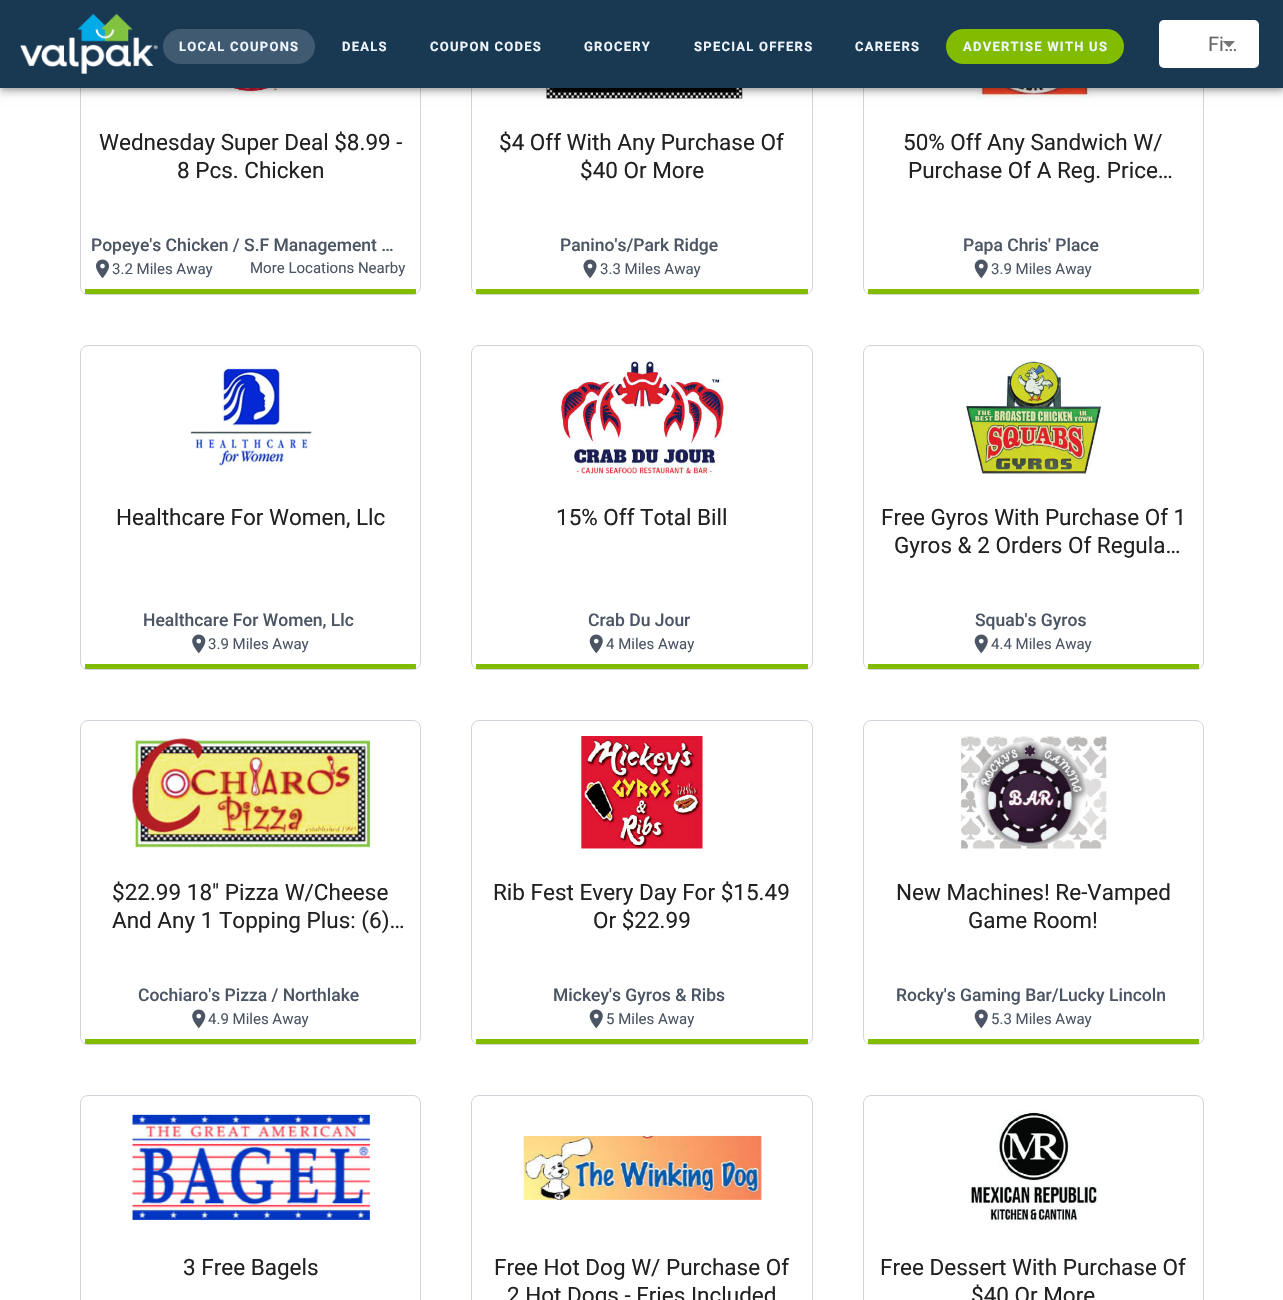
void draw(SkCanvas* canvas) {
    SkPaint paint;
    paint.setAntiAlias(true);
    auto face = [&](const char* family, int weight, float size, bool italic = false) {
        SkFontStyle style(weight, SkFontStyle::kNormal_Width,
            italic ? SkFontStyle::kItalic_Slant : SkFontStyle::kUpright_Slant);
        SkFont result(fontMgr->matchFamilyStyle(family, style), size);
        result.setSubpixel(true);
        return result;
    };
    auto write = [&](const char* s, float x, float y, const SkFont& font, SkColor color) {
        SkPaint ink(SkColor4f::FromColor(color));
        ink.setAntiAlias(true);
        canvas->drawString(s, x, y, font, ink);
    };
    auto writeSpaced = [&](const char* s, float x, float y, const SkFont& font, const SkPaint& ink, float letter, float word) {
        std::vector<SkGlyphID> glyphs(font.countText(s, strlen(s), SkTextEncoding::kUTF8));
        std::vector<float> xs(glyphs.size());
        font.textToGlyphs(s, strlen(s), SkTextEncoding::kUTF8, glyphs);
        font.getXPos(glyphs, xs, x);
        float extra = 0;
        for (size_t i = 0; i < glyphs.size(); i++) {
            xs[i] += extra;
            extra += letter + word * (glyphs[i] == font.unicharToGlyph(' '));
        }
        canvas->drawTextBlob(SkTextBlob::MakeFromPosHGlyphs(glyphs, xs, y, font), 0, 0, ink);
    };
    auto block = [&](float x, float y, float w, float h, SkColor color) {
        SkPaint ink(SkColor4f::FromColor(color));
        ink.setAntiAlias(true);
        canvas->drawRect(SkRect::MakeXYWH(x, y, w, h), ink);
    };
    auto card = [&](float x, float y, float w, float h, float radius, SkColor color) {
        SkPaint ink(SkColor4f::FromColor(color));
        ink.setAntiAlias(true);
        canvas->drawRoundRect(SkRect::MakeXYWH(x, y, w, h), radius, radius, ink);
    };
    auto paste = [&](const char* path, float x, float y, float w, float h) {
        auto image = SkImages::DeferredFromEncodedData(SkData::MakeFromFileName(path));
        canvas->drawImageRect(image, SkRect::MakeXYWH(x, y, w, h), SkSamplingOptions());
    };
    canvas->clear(SK_ColorWHITE);
    paint.setStyle(SkPaint::kStroke_Style);
    paint.setStrokeWidth(1);
    paint.setColor(SkColorSetRGB(209, 213, 219));
    canvas->drawRoundRect(SkRect::MakeXYWH(80.5f, -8.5f, 340, 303), 7.5f, 7.5f, paint);
    paste("pic2.png", 201, 88, 100, 7);
    canvas->drawRoundRect(SkRect::MakeXYWH(471.5f, -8.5f, 341, 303), 7.5f, 7.5f, paint);
    paste("pic4.png", 542, 88, 201, 11);
    canvas->drawRoundRect(SkRect::MakeXYWH(863.5f, -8.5f, 340, 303), 7.5f, 7.5f, paint);
    paste("pic6.png", 976, 88, 115, 11);
    paint.setStyle(SkPaint::kFill_Style);
    paint.setColor(SkColorSetARGB(31, 0, 0, 0));
    paint.setMaskFilter(SkMaskFilter::MakeBlur(kNormal_SkBlurStyle, 6));
    canvas->drawRect(SkRect::MakeXYWH(0, 1, 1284, 88), paint);
    paint.setMaskFilter(nullptr);
    paint.setColor(SkColorSetARGB(36, 0, 0, 0));
    paint.setMaskFilter(SkMaskFilter::MakeBlur(kNormal_SkBlurStyle, 3));
    canvas->drawRect(SkRect::MakeXYWH(0, 5, 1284, 88), paint);
    paint.setMaskFilter(nullptr);
    paint.setColor(SkColorSetARGB(51, 0, 0, 0));
    paint.setMaskFilter(SkMaskFilter::MakeBlur(kNormal_SkBlurStyle, 2.5f));
    canvas->drawRect(SkRect::MakeXYWH(1, 4, 1282, 85), paint);
    paint.setMaskFilter(nullptr);
    block(0, 0, 1283, 88, SkColorSetRGB(25, 56, 82));
    paste("pic1.png", 20, 13, 138, 61);
    card(163, 29, 152, 35, 17.5f, SkColorSetRGB(64, 90, 113));
    auto kFont1 = face("Roboto", 700, 13);
    paint.setColor(SkColorSetRGB(239, 246, 255));
    writeSpaced("LOCAL COUPONS", 179, 51, kFont1, paint, 1.25f, 0);
    writeSpaced("DEALS", 342, 51, kFont1, paint, 1.25f, 0);
    writeSpaced("COUPON CODES", 430, 51, kFont1, paint, 1.25f, 0);
    writeSpaced("GROCERY", 584, 51, kFont1, paint, 1.25f, 0);
    writeSpaced("SPECIAL OFFERS", 694, 51, kFont1, paint, 1.25f, 0);
    writeSpaced("CAREERS", 855, 51, kFont1, paint, 1.25f, 0);
    card(946, 29, 178, 35, 17.5f, SkColorSetRGB(130, 188, 0));
    writeSpaced("ADVERTISE WITH US", 963, 51, kFont1, paint, 1.25f, 0);
    card(1159, 20, 100, 48, 5, SK_ColorWHITE);
    auto kFont2 = face("Roboto", 400, 20);
    write("Fi…", 1208, 51, kFont2, SkColorSetRGB(102, 102, 102));
    paint.setColor(SkColorSetRGB(117, 117, 117));
    canvas->drawPath(SkPathBuilder().moveTo(1222.5f, 41).lineTo(1229, 47.5f).lineTo(1235, 41).close().detach(), paint);
    auto kFont3 = face("Roboto", 400, 22.5f);
    write("Wednesday Super Deal $8.99 -", 99, 150, kFont3, SkColorSetRGB(33, 33, 33));
    write("8 Pcs. Chicken", 177, 178, kFont3, SkColorSetRGB(33, 33, 33));
    block(85, 289, 331, 5, SkColorSetRGB(130, 188, 0));
    auto kFont4 = face("Roboto", 500, 17.5f);
    write("Popeye's Chicken / S.F Management …", 91, 251, kFont4, SkColorSetRGB(75, 85, 99));
    paste("pic3.png", 96, 259, 13, 20);
    auto kFont5 = face("Roboto", 400, 15);
    write("3.2 Miles Away", 112, 274, kFont5, SkColorSetRGB(75, 85, 99));
    write("More Locations Nearby", 250, 273, kFont5, SkColorSetRGB(75, 85, 99));
    write("$4 Off With Any Purchase Of", 499, 150, kFont3, SkColorSetRGB(33, 33, 33));
    write("$40 Or More", 580, 178, kFont3, SkColorSetRGB(33, 33, 33));
    block(476, 289, 332, 5, SkColorSetRGB(130, 188, 0));
    write("Panino's/Park Ridge", 560, 251, kFont4, SkColorSetRGB(75, 85, 99));
    paste("pic5.png", 583, 259, 14, 20);
    write("3.3 Miles Away", 600, 274, kFont5, SkColorSetRGB(75, 85, 99));
    write("50% Off Any Sandwich W/", 903, 150, kFont3, SkColorSetRGB(33, 33, 33));
    write("Purchase Of A Reg. Price…", 908, 178, kFont3, SkColorSetRGB(33, 33, 33));
    block(868, 289, 331, 5, SkColorSetRGB(130, 188, 0));
    write("Papa Chris' Place", 963, 251, kFont4, SkColorSetRGB(75, 85, 99));
    paste("pic7.png", 974, 259, 14, 20);
    write("3.9 Miles Away", 991, 274, kFont5, SkColorSetRGB(75, 85, 99));
    paint.setStyle(SkPaint::kStroke_Style);
    paint.setColor(SkColorSetRGB(209, 213, 219));
    canvas->drawRoundRect(SkRect::MakeXYWH(80.5f, 345.5f, 340, 324), 7.5f, 7.5f, paint);
    paste("pic8.png", 190, 365, 124, 101);
    write("Healthcare For Women, Llc", 116, 525, kFont3, SkColorSetRGB(33, 33, 33));
    block(85, 664, 331, 5, SkColorSetRGB(130, 188, 0));
    write("Healthcare For Women, Llc", 143, 626, kFont4, SkColorSetRGB(75, 85, 99));
    paste("pic9.png", 192, 634, 14, 20);
    write("3.9 Miles Away", 208, 649, kFont5, SkColorSetRGB(75, 85, 99));
    canvas->drawRoundRect(SkRect::MakeXYWH(471.5f, 345.5f, 341, 324), 7.5f, 7.5f, paint);
    paste("pic10.png", 561, 361, 163, 113);
    write("15% Off Total Bill", 556, 525, kFont3, SkColorSetRGB(33, 33, 33));
    block(476, 664, 332, 5, SkColorSetRGB(130, 188, 0));
    write("Crab Du Jour", 588, 626, kFont4, SkColorSetRGB(75, 85, 99));
    paste("pic7.png", 589, 634, 14, 20);
    write("4 Miles Away", 606, 649, kFont5, SkColorSetRGB(75, 85, 99));
    canvas->drawRoundRect(SkRect::MakeXYWH(863.5f, 345.5f, 340, 324), 7.5f, 7.5f, paint);
    paste("pic11.png", 965, 361, 138, 113);
    write("Free Gyros With Purchase Of 1", 881, 525, kFont3, SkColorSetRGB(33, 33, 33));
    write("Gyros & 2 Orders Of Regula…", 894, 553, kFont3, SkColorSetRGB(33, 33, 33));
    block(868, 664, 331, 5, SkColorSetRGB(130, 188, 0));
    write("Squab's Gyros", 975, 626, kFont4, SkColorSetRGB(75, 85, 99));
    paste("pic7.png", 974, 634, 14, 20);
    write("4.4 Miles Away", 991, 649, kFont5, SkColorSetRGB(75, 85, 99));
    canvas->drawRoundRect(SkRect::MakeXYWH(80.5f, 720.5f, 340, 324), 7.5f, 7.5f, paint);
    paste("pic12.png", 132, 738, 238, 110);
    write("$22.99 18\" Pizza W/Cheese", 112, 900, kFont3, SkColorSetRGB(33, 33, 33));
    write("And Any 1 Topping Plus: (6)…", 112, 928, kFont3, SkColorSetRGB(33, 33, 33));
    block(85, 1039, 331, 5, SkColorSetRGB(130, 188, 0));
    write("Cochiaro's Pizza / Northlake", 138, 1001, kFont4, SkColorSetRGB(75, 85, 99));
    paste("pic9.png", 192, 1009, 14, 20);
    write("4.9 Miles Away", 208, 1024, kFont5, SkColorSetRGB(75, 85, 99));
    canvas->drawRoundRect(SkRect::MakeXYWH(471.5f, 720.5f, 341, 324), 7.5f, 7.5f, paint);
    paste("pic13.png", 581, 736, 122, 113);
    write("Rib Fest Every Day For $15.49", 493, 900, kFont3, SkColorSetRGB(33, 33, 33));
    write("Or $22.99", 593, 928, kFont3, SkColorSetRGB(33, 33, 33));
    block(476, 1039, 332, 5, SkColorSetRGB(130, 188, 0));
    write("Mickey's Gyros & Ribs", 553, 1001, kFont4, SkColorSetRGB(75, 85, 99));
    paste("pic7.png", 589, 1009, 14, 20);
    write("5 Miles Away", 606, 1024, kFont5, SkColorSetRGB(75, 85, 99));
    canvas->drawRoundRect(SkRect::MakeXYWH(863.5f, 720.5f, 340, 324), 7.5f, 7.5f, paint);
    paste("pic14.png", 961, 736, 146, 113);
    write("New Machines! Re-Vamped", 896, 900, kFont3, SkColorSetRGB(33, 33, 33));
    write("Game Room!", 968, 928, kFont3, SkColorSetRGB(33, 33, 33));
    block(868, 1039, 331, 5, SkColorSetRGB(130, 188, 0));
    write("Rocky's Gaming Bar/Lucky Lincoln", 896, 1001, kFont4, SkColorSetRGB(75, 85, 99));
    paste("pic7.png", 974, 1009, 14, 20);
    write("5.3 Miles Away", 991, 1024, kFont5, SkColorSetRGB(75, 85, 99));
    canvas->drawRoundRect(SkRect::MakeXYWH(80.5f, 1095.5f, 340, 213), 7.5f, 7.5f, paint);
    paste("pic15.png", 132, 1114, 238, 106);
    write("3 Free Bagels", 183, 1275, kFont3, SkColorSetRGB(33, 33, 33));
    canvas->drawRoundRect(SkRect::MakeXYWH(471.5f, 1095.5f, 341, 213), 7.5f, 7.5f, paint);
    paste("pic16.png", 523, 1135, 239, 65);
    write("Free Hot Dog W/ Purchase Of", 494, 1275, kFont3, SkColorSetRGB(33, 33, 33));
    write("2 Hot Dogs - Fries Included", 507, 1303, kFont3, SkColorSetRGB(33, 33, 33));
    canvas->drawRoundRect(SkRect::MakeXYWH(863.5f, 1095.5f, 340, 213), 7.5f, 7.5f, paint);
    paste("pic17.png", 968, 1111, 132, 112);
    write("Free Dessert With Purchase Of", 880, 1275, kFont3, SkColorSetRGB(33, 33, 33));
    write("$40 Or More", 971, 1303, kFont3, SkColorSetRGB(33, 33, 33));
}
